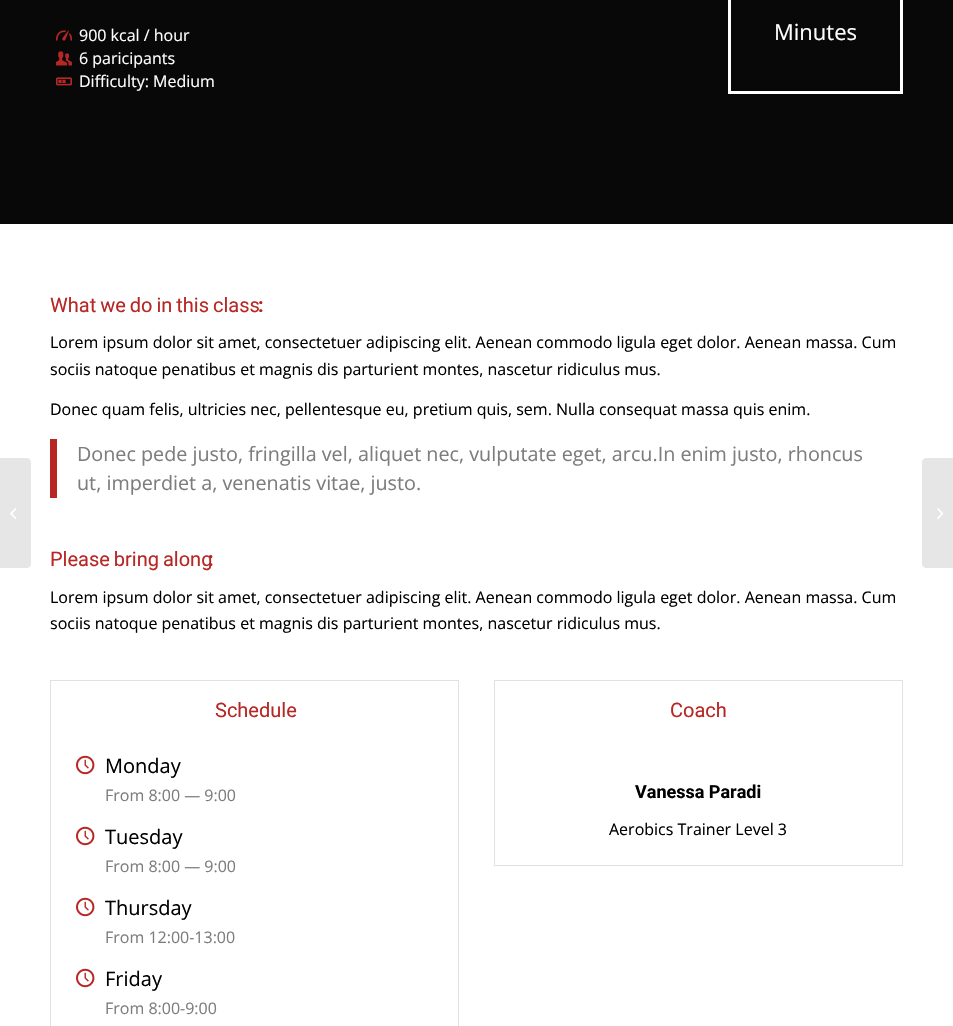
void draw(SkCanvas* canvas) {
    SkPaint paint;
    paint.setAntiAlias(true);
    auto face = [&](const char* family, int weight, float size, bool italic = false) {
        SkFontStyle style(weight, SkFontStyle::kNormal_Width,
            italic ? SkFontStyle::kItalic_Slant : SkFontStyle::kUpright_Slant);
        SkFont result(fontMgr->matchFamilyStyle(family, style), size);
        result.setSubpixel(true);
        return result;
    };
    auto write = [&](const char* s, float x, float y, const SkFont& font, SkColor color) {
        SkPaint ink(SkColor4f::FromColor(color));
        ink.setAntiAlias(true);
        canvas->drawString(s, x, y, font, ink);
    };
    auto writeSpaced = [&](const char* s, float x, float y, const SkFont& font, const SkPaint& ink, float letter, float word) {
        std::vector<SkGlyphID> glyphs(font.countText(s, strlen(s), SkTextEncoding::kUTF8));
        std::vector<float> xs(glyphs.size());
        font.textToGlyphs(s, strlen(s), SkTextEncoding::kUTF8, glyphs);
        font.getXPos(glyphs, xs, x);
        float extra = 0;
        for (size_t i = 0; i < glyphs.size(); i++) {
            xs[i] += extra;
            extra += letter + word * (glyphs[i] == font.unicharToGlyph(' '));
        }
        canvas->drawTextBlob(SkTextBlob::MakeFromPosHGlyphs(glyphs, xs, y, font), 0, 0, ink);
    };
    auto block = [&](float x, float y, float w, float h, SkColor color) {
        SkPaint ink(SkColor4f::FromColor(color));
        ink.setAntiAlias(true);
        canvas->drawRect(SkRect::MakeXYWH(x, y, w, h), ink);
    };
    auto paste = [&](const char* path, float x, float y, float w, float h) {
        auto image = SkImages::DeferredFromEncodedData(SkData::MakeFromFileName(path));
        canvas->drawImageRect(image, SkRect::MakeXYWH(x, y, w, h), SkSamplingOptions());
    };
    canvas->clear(SK_ColorWHITE);
    paint.setColor(SkColorSetRGB(230, 230, 230));
    canvas->drawPath(SkPathBuilder().moveTo(0, 458).lineTo(27, 458).cubicTo(29, 458, 31, 460, 31, 462).lineTo(31, 564).cubicTo(31, 566, 29, 568, 27, 568).lineTo(0, 568).close().detach(), paint);
    paste("pic1.png", 10, 508, 7, 11);
    block(0, 0, 953, 224, SkColorSetRGB(8, 8, 8));
    paste("pic2.png", 56, 30, 16, 11);
    auto kFont1 = face("Open Sans", 400, 16);
    write("900 kcal / hour", 79, 41, kFont1, SK_ColorWHITE);
    paste("pic3.png", 56, 51, 16, 15);
    write("6 paricipants", 79, 64, kFont1, SK_ColorWHITE);
    paste("pic4.png", 56, 77, 16, 9);
    write("Difficulty: Medium", 79, 87, kFont1, SK_ColorWHITE);
    paint.setStyle(SkPaint::kStroke_Style);
    paint.setStrokeWidth(3);
    paint.setColor(SK_ColorWHITE);
    canvas->drawRect(SkRect::MakeXYWH(729.5f, -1.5f, 172, 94), paint);
    auto kFont2 = face("Open Sans", 400, 22);
    write("Minutes", 774, 40, kFont2, SK_ColorWHITE);
    auto kFont3 = face("Roboto", 400, 20);
    paint.setStyle(SkPaint::kFill_Style);
    paint.setColor(SkColorSetRGB(183, 39, 36));
    writeSpaced("What we do in this class", 50, 312, kFont3, paint, 0, -1);
    auto kFont4 = face("Roboto", 700, 20);
    write(":", 258, 312, kFont4, SkColorSetRGB(183, 39, 36));
    write("Lorem ipsum dolor sit amet, consectetuer adipiscing elit. Aenean commodo ligula eget dolor. Aenean massa. Cum", 50, 348, kFont1, SK_ColorBLACK);
    write("sociis natoque penatibus et magnis dis parturient montes, nascetur ridiculus mus.", 50, 375, kFont1, SK_ColorBLACK);
    write("Donec quam felis, ultricies nec, pellentesque eu, pretium quis, sem. Nulla consequat massa quis enim.", 50, 415, kFont1, SK_ColorBLACK);
    block(50, 439, 7, 59, SkColorSetRGB(183, 39, 36));
    auto kFont5 = face("Open Sans", 400, 19.75f);
    write("Donec pede justo, fringilla vel, aliquet nec, vulputate eget, arcu.In enim justo, rhoncus", 77, 461, kFont5, SkColorSetRGB(125, 125, 125));
    write("ut, imperdiet a, venenatis vitae, justo.", 77, 490, kFont5, SkColorSetRGB(125, 125, 125));
    writeSpaced("Please bring along", 50, 566, kFont3, paint, 0, -1);
    write(":", 208, 566, kFont4, SkColorSetRGB(183, 39, 36));
    write("Lorem ipsum dolor sit amet, consectetuer adipiscing elit. Aenean commodo ligula eget dolor. Aenean massa. Cum", 50, 603, kFont1, SK_ColorBLACK);
    write("sociis natoque penatibus et magnis dis parturient montes, nascetur ridiculus mus.", 50, 629, kFont1, SK_ColorBLACK);
    paint.setStyle(SkPaint::kStroke_Style);
    paint.setStrokeWidth(1);
    paint.setColor(SkColorSetRGB(225, 225, 225));
    canvas->drawRect(SkRect::MakeXYWH(50.5f, 680.5f, 408, 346), paint);
    write("Schedule", 215, 717, kFont3, SkColorSetRGB(183, 39, 36));
    paste("pic5.png", 76, 755, 19, 20);
    auto kFont6 = face("Open Sans", 400, 20);
    write("Monday", 105, 773, kFont6, SK_ColorBLACK);
    write("From 8:00 — 9:00", 105, 801, kFont1, SkColorSetRGB(125, 125, 125));
    paste("pic5.png", 76, 826, 19, 20);
    write("Tuesday", 105, 844, kFont6, SK_ColorBLACK);
    write("From 8:00 — 9:00", 105, 872, kFont1, SkColorSetRGB(125, 125, 125));
    paste("pic5.png", 76, 897, 19, 20);
    write("Thursday", 105, 915, kFont6, SK_ColorBLACK);
    write("From 12:00-13:00", 105, 943, kFont1, SkColorSetRGB(125, 125, 125));
    paste("pic5.png", 76, 968, 19, 20);
    write("Friday", 105, 986, kFont6, SK_ColorBLACK);
    write("From 8:00-9:00", 105, 1014, kFont1, SkColorSetRGB(125, 125, 125));
    canvas->drawRect(SkRect::MakeXYWH(494.5f, 680.5f, 408, 185), paint);
    write("Coach", 670, 717, kFont3, SkColorSetRGB(183, 39, 36));
    auto kFont7 = face("Roboto", 700, 18);
    write("Vanessa Paradi", 635, 798, kFont7, SK_ColorBLACK);
    write("Aerobics Trainer Level 3", 609, 835, kFont1, SK_ColorBLACK);
    paint.setStyle(SkPaint::kFill_Style);
    paint.setColor(SkColorSetRGB(230, 230, 230));
    canvas->drawPath(SkPathBuilder().moveTo(926, 458).lineTo(953, 458).lineTo(953, 568).lineTo(926, 568).cubicTo(924, 568, 922, 566, 922, 564).lineTo(922, 462).cubicTo(922, 460, 924, 458, 926, 458).close().detach(), paint);
    paste("pic6.png", 937, 508, 7, 11);
}
